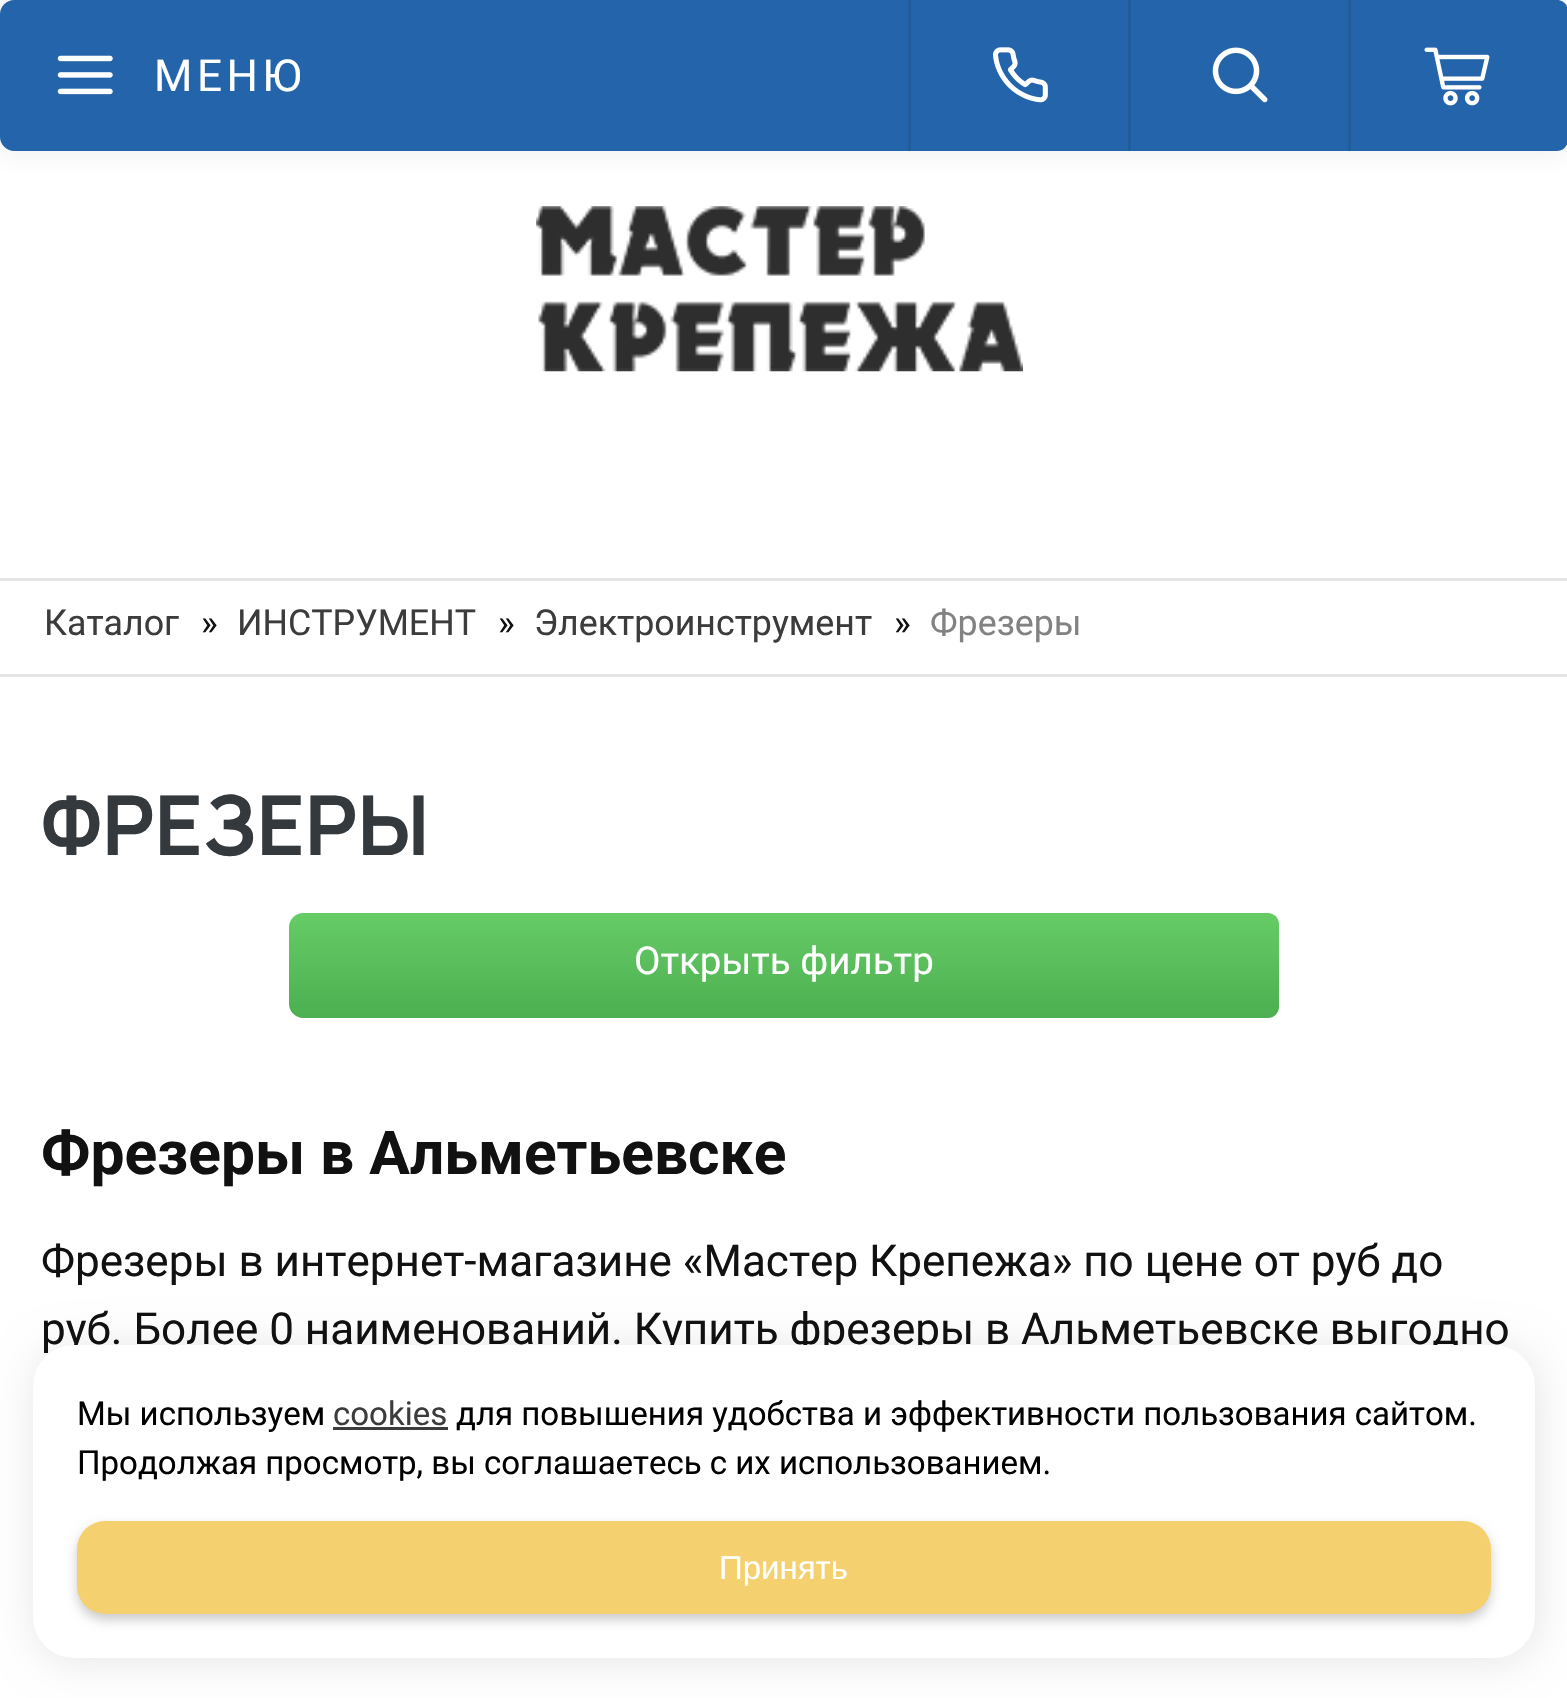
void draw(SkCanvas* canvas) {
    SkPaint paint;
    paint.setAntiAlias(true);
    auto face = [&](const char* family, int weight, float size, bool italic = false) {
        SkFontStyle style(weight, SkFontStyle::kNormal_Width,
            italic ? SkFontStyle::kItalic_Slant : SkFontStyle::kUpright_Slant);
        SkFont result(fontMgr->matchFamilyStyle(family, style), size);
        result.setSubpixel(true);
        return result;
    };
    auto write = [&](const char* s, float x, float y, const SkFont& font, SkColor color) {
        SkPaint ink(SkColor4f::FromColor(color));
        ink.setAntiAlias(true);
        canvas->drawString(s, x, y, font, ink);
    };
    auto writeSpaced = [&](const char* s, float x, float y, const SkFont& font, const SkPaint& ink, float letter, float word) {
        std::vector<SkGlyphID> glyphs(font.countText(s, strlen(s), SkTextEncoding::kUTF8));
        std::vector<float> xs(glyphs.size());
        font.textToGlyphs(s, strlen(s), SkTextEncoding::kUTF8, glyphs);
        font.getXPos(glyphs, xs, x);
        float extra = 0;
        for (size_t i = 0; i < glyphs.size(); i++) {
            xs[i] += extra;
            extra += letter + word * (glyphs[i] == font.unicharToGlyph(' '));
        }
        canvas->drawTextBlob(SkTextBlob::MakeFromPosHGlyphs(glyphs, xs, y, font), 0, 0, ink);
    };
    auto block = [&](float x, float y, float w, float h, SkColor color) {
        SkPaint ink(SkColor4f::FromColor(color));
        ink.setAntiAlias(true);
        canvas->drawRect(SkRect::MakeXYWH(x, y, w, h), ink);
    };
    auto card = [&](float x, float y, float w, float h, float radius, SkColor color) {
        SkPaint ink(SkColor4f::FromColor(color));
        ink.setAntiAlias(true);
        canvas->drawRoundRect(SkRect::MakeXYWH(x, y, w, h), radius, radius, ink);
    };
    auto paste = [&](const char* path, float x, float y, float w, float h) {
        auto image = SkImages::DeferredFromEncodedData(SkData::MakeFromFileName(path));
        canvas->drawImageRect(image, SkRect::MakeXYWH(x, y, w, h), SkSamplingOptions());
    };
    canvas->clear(SK_ColorWHITE);
    paint.setColor(SkColorSetARGB(18, 16, 15, 28));
    paint.setMaskFilter(SkMaskFilter::MakeBlur(kNormal_SkBlurStyle, 14));
    canvas->drawRoundRect(SkRect::MakeXYWH(-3, -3, 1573, 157), 17, 17, paint);
    paint.setMaskFilter(nullptr);
    paint.setColor(SkColorSetRGB(35, 100, 170));
    canvas->drawPath(SkPathBuilder().moveTo(14, 0).lineTo(1557, 0).cubicTo(1563, 0, 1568, 5, 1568, 11).lineTo(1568, 140).cubicTo(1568, 146, 1563, 151, 1557, 151).lineTo(14, 151).cubicTo(6.5f, 151, 0, 144.5f, 0, 137).lineTo(0, 14).cubicTo(0, 6.5f, 6.5f, 0, 14, 0).close().detach(), paint);
    paste("pic1.png", 57, 55, 56, 40);
    auto kFont1 = face("Roboto", 400, 44);
    paint.setColor(SK_ColorWHITE);
    writeSpaced("МЕНЮ", 154, 91, kFont1, paint, 4.5f, 0);
    block(908, 0, 3, 151, SkColorSetRGB(33, 92, 157));
    paste("pic2.png", 993, 47, 55, 56);
    block(1128, 0, 3, 151, SkColorSetRGB(33, 92, 157));
    paste("pic3.png", 1212, 47, 56, 56);
    block(1348, 0, 3, 151, SkColorSetRGB(33, 92, 157));
    paste("pic4.png", 1424, 47, 66, 59);
    paste("pic5.png", 536, 206, 487, 166);
    block(0, 578, 1567, 3, SkColorSetRGB(229, 229, 231));
    block(0, 674, 1567, 3, SkColorSetRGB(229, 229, 231));
    auto kFont2 = face("Roboto", 400, 35.75f);
    write("Каталог", 44, 635, kFont2, SkColorSetRGB(61, 60, 60));
    write("»", 201, 635, kFont2, SkColorSetRGB(17, 17, 17));
    write("ИНСТРУМЕНТ", 237, 635, kFont2, SkColorSetRGB(61, 60, 60));
    write("»", 498, 635, kFont2, SkColorSetRGB(17, 17, 17));
    write("Электроинструмент", 534, 635, kFont2, SkColorSetRGB(61, 60, 60));
    write("»", 894, 635, kFont2, SkColorSetRGB(17, 17, 17));
    write("Фрезеры", 930, 635, kFont2, SkColorSetRGB(130, 130, 130));
    auto kFont3 = face("Manrope", 700, 82.5f);
    write("ФРЕЗЕРЫ", 41, 855, kFont3, SkColorSetRGB(51, 57, 60));
    {
        const SkColor colors[] = {SkColorSetRGB(76, 175, 80), SkColorSetRGB(102, 204, 102)};
        const float stops[] = {0, 1};
        const SkPoint ends[] = {{784, 1018}, {784, 913}};
        paint.setShader(SkGradientShader::MakeLinear(ends, colors, stops, 2, SkTileMode::kClamp));
        paint.setAlpha(255);
    }
    canvas->drawPath(SkPathBuilder().moveTo(303, 913).lineTo(1268, 913).cubicTo(1274, 913, 1279, 918, 1279, 924).lineTo(1279, 1007).cubicTo(1279, 1013, 1274, 1018, 1268, 1018).lineTo(303, 1018).cubicTo(295.5f, 1018, 289, 1011.5f, 289, 1004).lineTo(289, 927).cubicTo(289, 919.5f, 295.5f, 913, 303, 913).close().detach(), paint);
    auto kFont4 = face("Roboto", 400, 38.5f);
    write("Открыть фильтр", 634, 974, kFont4, SK_ColorWHITE);
    auto kFont5 = face("Roboto", 700, 60.5f);
    write("Фрезеры в Альметьевске", 41, 1174, kFont5, SkColorSetRGB(17, 17, 17));
    write("Фрезеры в интернет-магазине «Мастер Крепежа» по цене от руб до", 41, 1276, kFont1, SkColorSetRGB(17, 17, 17));
    write("руб. Более 0 наименований. Купить фрезеры в Альметьевске выгодно", 41, 1344, kFont1, SkColorSetRGB(17, 17, 17));
    paint.setShader(nullptr);
    paint.setColor(SkColorSetARGB(26, 0, 0, 0));
    paint.setMaskFilter(SkMaskFilter::MakeBlur(kNormal_SkBlurStyle, 20.5f));
    canvas->drawRoundRect(SkRect::MakeXYWH(36, 1348, 1501, 313), 41, 41, paint);
    paint.setMaskFilter(nullptr);
    card(33, 1345, 1502, 313, 41, SK_ColorWHITE);
    auto kFont6 = face("Roboto", 400, 33);
    write("Мы используем", 77, 1425, kFont6, SK_ColorBLACK);
    write("cookies", 333, 1425, kFont6, SkColorSetRGB(61, 60, 60));
    block(333, 1427, 115, 3, SkColorSetRGB(61, 60, 60));
    write("для повышения удобства и эффективности пользования сайтом.", 456, 1425, kFont6, SK_ColorBLACK);
    write("Продолжая просмотр, вы соглашаетесь с их использованием.", 77, 1474, kFont6, SK_ColorBLACK);
    paint.setColor(SkColorSetARGB(51, 0, 0, 0));
    paint.setMaskFilter(SkMaskFilter::MakeBlur(kNormal_SkBlurStyle, 5.5f));
    canvas->drawRoundRect(SkRect::MakeXYWH(77, 1526, 1414, 94), 28, 28, paint);
    paint.setMaskFilter(nullptr);
    card(77, 1521, 1414, 93, 28, SkColorSetRGB(244, 208, 111));
    auto kFont7 = face("Liberation Sans", 400, 33);
    write("Принять", 719, 1579, kFont7, SK_ColorWHITE);
}
